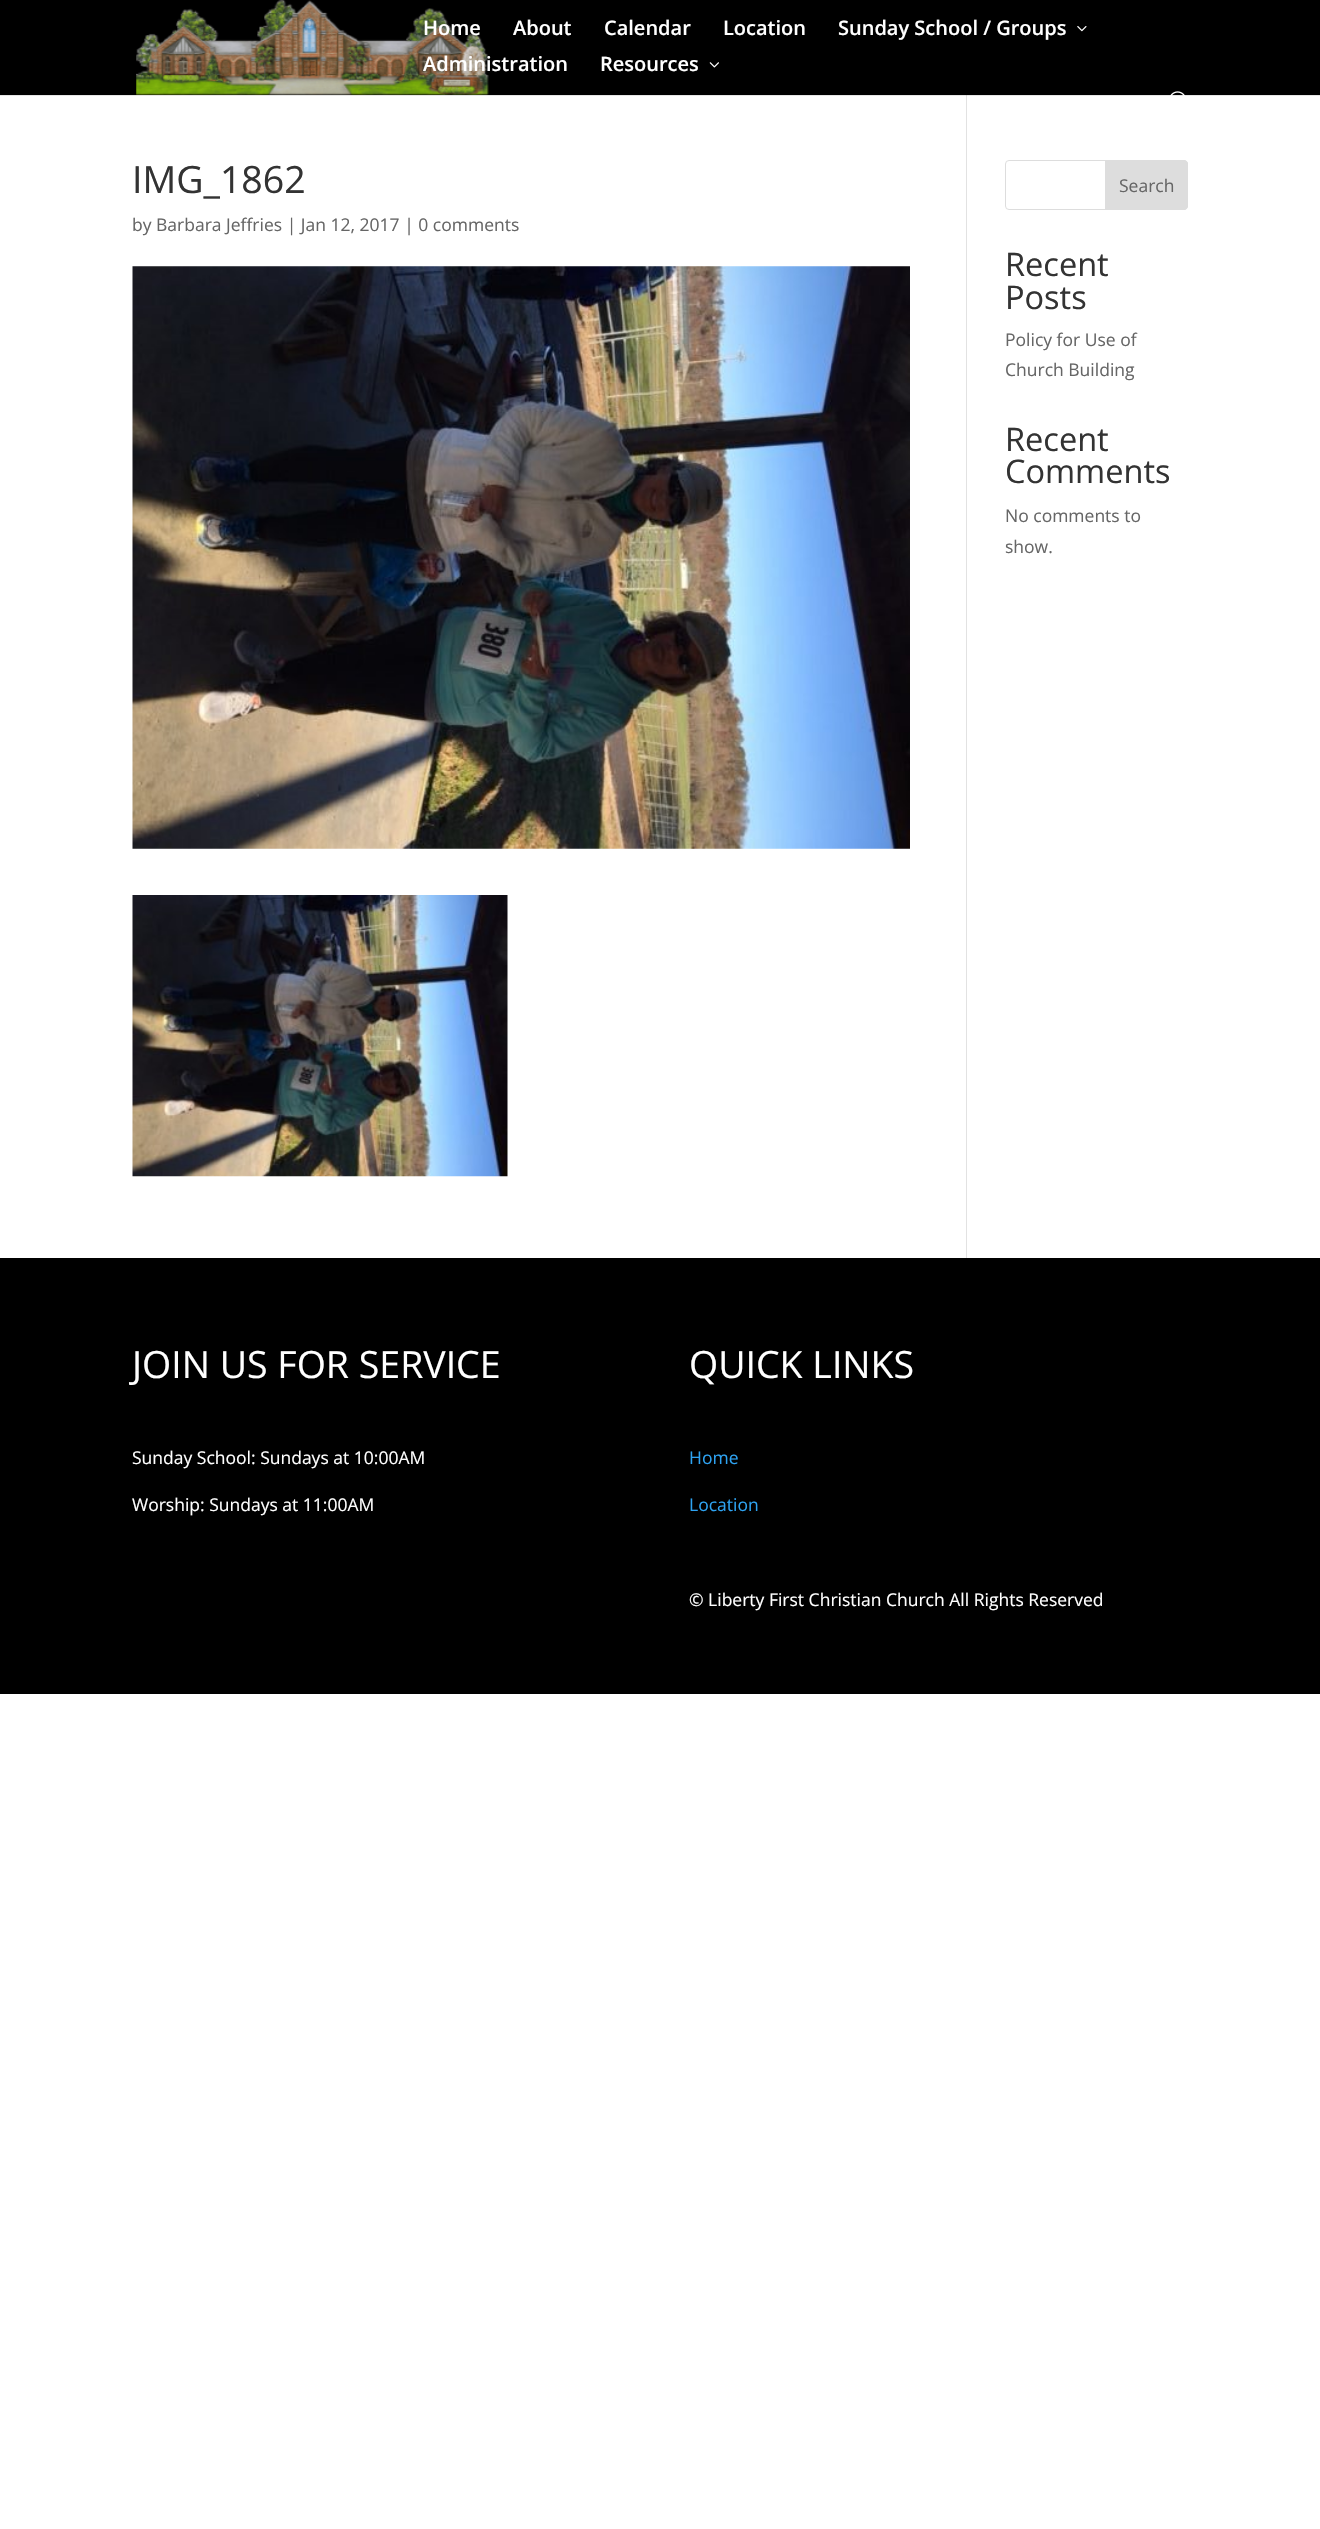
void draw(SkCanvas* canvas) {
    SkPaint paint;
    paint.setAntiAlias(true);
    auto face = [&](const char* family, int weight, float size, bool italic = false) {
        SkFontStyle style(weight, SkFontStyle::kNormal_Width,
            italic ? SkFontStyle::kItalic_Slant : SkFontStyle::kUpright_Slant);
        SkFont result(fontMgr->matchFamilyStyle(family, style), size);
        result.setSubpixel(true);
        return result;
    };
    auto write = [&](const char* s, float x, float y, const SkFont& font, SkColor color) {
        SkPaint ink(SkColor4f::FromColor(color));
        ink.setAntiAlias(true);
        canvas->drawString(s, x, y, font, ink);
    };
    auto block = [&](float x, float y, float w, float h, SkColor color) {
        SkPaint ink(SkColor4f::FromColor(color));
        ink.setAntiAlias(true);
        canvas->drawRect(SkRect::MakeXYWH(x, y, w, h), ink);
    };
    auto paste = [&](const char* path, float x, float y, float w, float h) {
        auto image = SkImages::DeferredFromEncodedData(SkData::MakeFromFileName(path));
        canvas->drawImageRect(image, SkRect::MakeXYWH(x, y, w, h), SkSamplingOptions());
    };
    canvas->clear(SK_ColorWHITE);
    block(0, 95, 1320, 1, SkColorSetRGB(230, 230, 230));
    block(966, 88, 1, 1170, SkColorSetRGB(226, 226, 226));
    block(0, 0, 1320, 95, SK_ColorBLACK);
    paste("pic1.png", 136, 0, 353, 95);
    auto kFont1 = face("Open Sans", 600, 20);
    write("Home", 423, 35, kFont1, SK_ColorWHITE);
    write("About", 513, 35, kFont1, SK_ColorWHITE);
    write("Calendar", 604, 35, kFont1, SK_ColorWHITE);
    write("Location", 723, 35, kFont1, SK_ColorWHITE);
    write("Sunday School / Groups", 838, 35, kFont1, SK_ColorWHITE);
    paste("pic2.png", 1077, 26, 10, 6);
    write("Administration", 423, 71, kFont1, SK_ColorWHITE);
    write("Resources", 600, 71, kFont1, SK_ColorWHITE);
    paste("pic3.png", 709, 62, 10, 6);
    paste("pic4.png", 1170, 91, 15, 5);
    block(966, 95, 1, 1, SkColorSetRGB(203, 203, 203));
    auto kFont2 = face("Open Sans", 400, 37.5f);
    write("IMG_1862", 132, 193, kFont2, SkColorSetRGB(51, 51, 51));
    auto kFont3 = face("Open Sans", 400, 17.5f);
    write("by Barbara Jeffries | Jan 12, 2017 | 0 comments", 132, 231, kFont3, SkColorSetRGB(102, 102, 102));
    paste("pic5.png", 132, 266, 778, 583);
    paste("pic6.png", 132, 895, 376, 282);
    paint.setStyle(SkPaint::kStroke_Style);
    paint.setStrokeWidth(1);
    paint.setColor(SkColorSetRGB(221, 221, 221));
    canvas->drawRoundRect(SkRect::MakeXYWH(1005.5f, 160.5f, 182, 49), 3.5f, 3.5f, paint);
    paint.setStyle(SkPaint::kFill_Style);
    canvas->drawPath(SkPathBuilder().moveTo(1105.5f, 160.5f).lineTo(1184, 160.5f).cubicTo(1186, 160.5f, 1187.5f, 162, 1187.5f, 164).lineTo(1187.5f, 206).cubicTo(1187.5f, 208, 1186, 209.5f, 1184, 209.5f).lineTo(1105.5f, 209.5f).close().detach(), paint);
    paint.setStyle(SkPaint::kStroke_Style);
    canvas->drawPath(SkPathBuilder().moveTo(1105.5f, 160.5f).lineTo(1184, 160.5f).cubicTo(1186, 160.5f, 1187.5f, 162, 1187.5f, 164).lineTo(1187.5f, 206).cubicTo(1187.5f, 208, 1186, 209.5f, 1184, 209.5f).lineTo(1105.5f, 209.5f).close().detach(), paint);
    write("Search", 1119, 192, kFont3, SkColorSetRGB(102, 102, 102));
    auto kFont4 = face("Open Sans", 400, 32.5f);
    write("Recent", 1005, 276, kFont4, SkColorSetRGB(51, 51, 51));
    write("Posts", 1005, 309, kFont4, SkColorSetRGB(51, 51, 51));
    write("Policy for Use of", 1005, 346, kFont3, SkColorSetRGB(102, 102, 102));
    write("Church Building", 1005, 376, kFont3, SkColorSetRGB(102, 102, 102));
    write("Recent", 1005, 451, kFont4, SkColorSetRGB(51, 51, 51));
    write("Comments", 1005, 483, kFont4, SkColorSetRGB(51, 51, 51));
    write("No comments to", 1005, 522, kFont3, SkColorSetRGB(102, 102, 102));
    write("show.", 1005, 553, kFont3, SkColorSetRGB(102, 102, 102));
    block(0, 1258, 1320, 436, SK_ColorBLACK);
    write("JOIN US FOR SERVICE", 132, 1378, kFont2, SK_ColorWHITE);
    write("Sunday School: Sundays at 10:00AM", 132, 1464, kFont3, SK_ColorWHITE);
    write("Worship: Sundays at 11:00AM", 132, 1511, kFont3, SK_ColorWHITE);
    write("QUICK LINKS", 689, 1378, kFont2, SK_ColorWHITE);
    write("Home", 689, 1464, kFont3, SkColorSetRGB(46, 163, 242));
    write("Location", 689, 1511, kFont3, SkColorSetRGB(46, 163, 242));
    write("© Liberty First Christian Church All Rights Reserved", 689, 1606, kFont3, SK_ColorWHITE);
}
